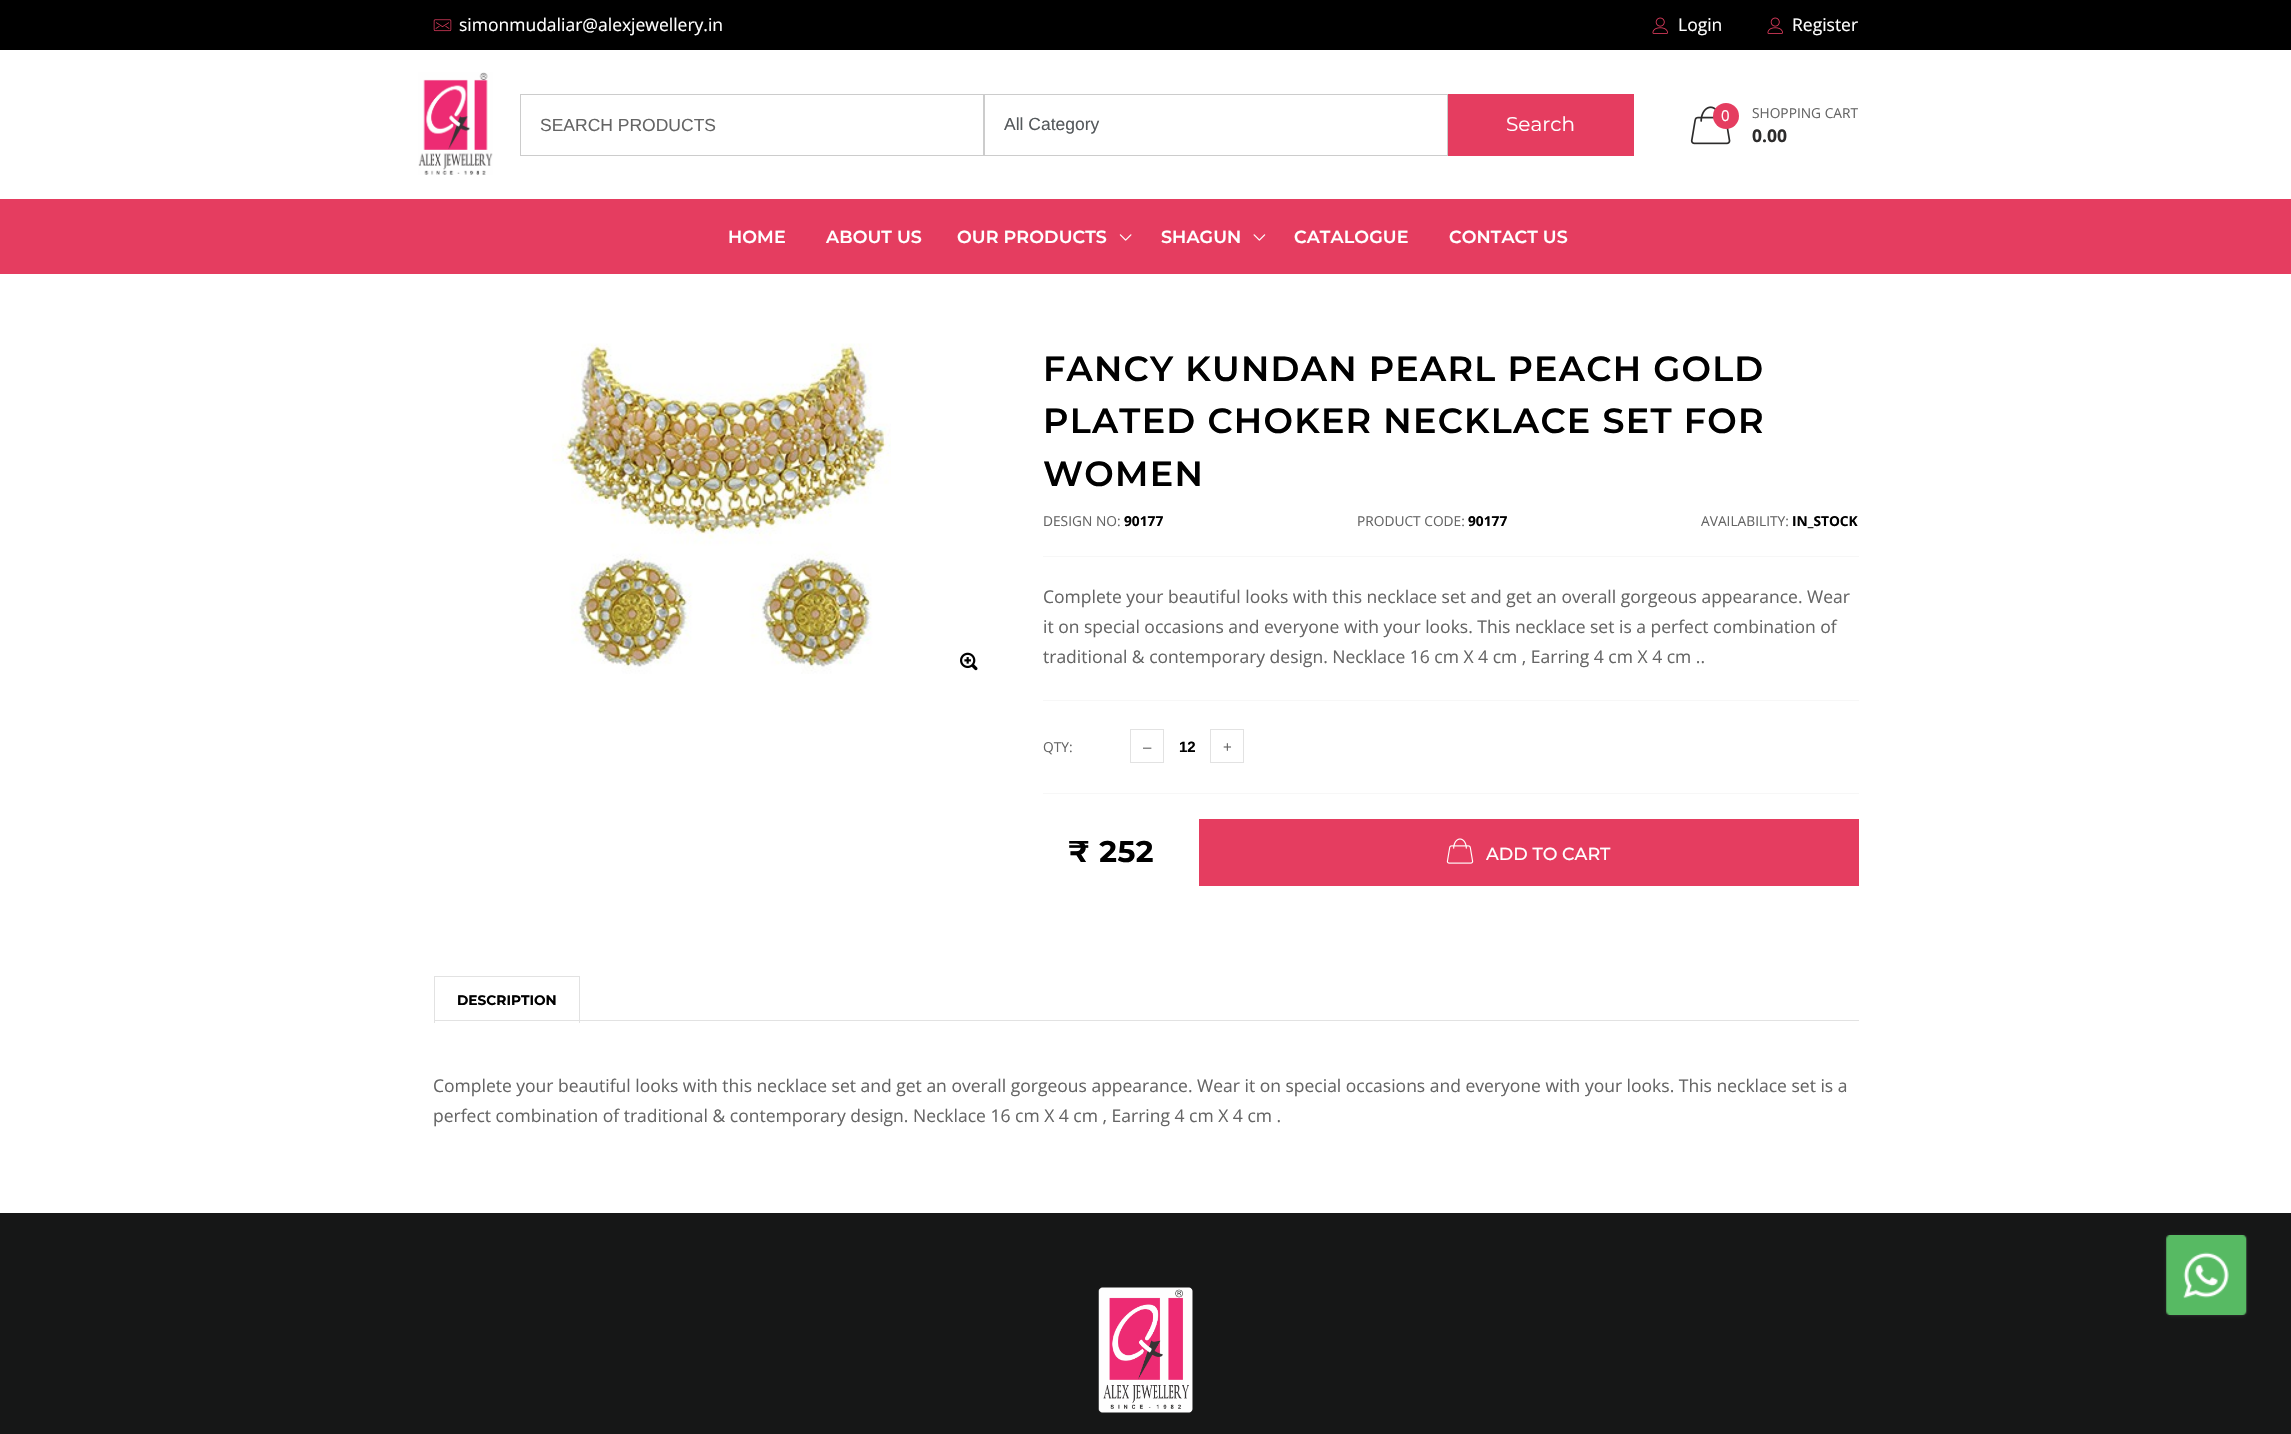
void draw(SkCanvas* canvas) {
    SkPaint paint;
    paint.setAntiAlias(true);
    auto face = [&](const char* family, int weight, float size, bool italic = false) {
        SkFontStyle style(weight, SkFontStyle::kNormal_Width,
            italic ? SkFontStyle::kItalic_Slant : SkFontStyle::kUpright_Slant);
        SkFont result(fontMgr->matchFamilyStyle(family, style), size);
        result.setSubpixel(true);
        return result;
    };
    auto write = [&](const char* s, float x, float y, const SkFont& font, SkColor color) {
        SkPaint ink(SkColor4f::FromColor(color));
        ink.setAntiAlias(true);
        canvas->drawString(s, x, y, font, ink);
    };
    auto writeSpaced = [&](const char* s, float x, float y, const SkFont& font, const SkPaint& ink, float letter, float word) {
        std::vector<SkGlyphID> glyphs(font.countText(s, strlen(s), SkTextEncoding::kUTF8));
        std::vector<float> xs(glyphs.size());
        font.textToGlyphs(s, strlen(s), SkTextEncoding::kUTF8, glyphs);
        font.getXPos(glyphs, xs, x);
        float extra = 0;
        for (size_t i = 0; i < glyphs.size(); i++) {
            xs[i] += extra;
            extra += letter + word * (glyphs[i] == font.unicharToGlyph(' '));
        }
        canvas->drawTextBlob(SkTextBlob::MakeFromPosHGlyphs(glyphs, xs, y, font), 0, 0, ink);
    };
    auto block = [&](float x, float y, float w, float h, SkColor color) {
        SkPaint ink(SkColor4f::FromColor(color));
        ink.setAntiAlias(true);
        canvas->drawRect(SkRect::MakeXYWH(x, y, w, h), ink);
    };
    auto paste = [&](const char* path, float x, float y, float w, float h) {
        auto image = SkImages::DeferredFromEncodedData(SkData::MakeFromFileName(path));
        canvas->drawImageRect(image, SkRect::MakeXYWH(x, y, w, h), SkSamplingOptions());
    };
    canvas->clear(SK_ColorWHITE);
    block(0, 0, 2291, 50, SK_ColorBLACK);
    paste("pic1.png", 433, 19, 19, 13);
    auto kFont1 = face("Open Sans", 400, 17.5f);
    write("simonmudaliar@alexjewellery.in", 459, 31, kFont1, SK_ColorWHITE);
    paste("pic2.png", 1652, 17, 16, 17);
    write("Login", 1678, 31, kFont1, SK_ColorWHITE);
    paste("pic2.png", 1767, 17, 16, 17);
    write("Register", 1792, 31, kFont1, SK_ColorWHITE);
    paste("pic3.png", 418, 72, 75, 103);
    paint.setStyle(SkPaint::kStroke_Style);
    paint.setStrokeWidth(1);
    paint.setColor(SkColorSetRGB(204, 204, 204));
    canvas->drawRect(SkRect::MakeXYWH(520.5f, 94.5f, 463, 61), paint);
    auto kFont2 = face("Liberation Sans", 400, 17.5f);
    write("SEARCH PRODUCTS", 540, 131, kFont2, SkColorSetRGB(101, 101, 101));
    canvas->drawRect(SkRect::MakeXYWH(984.5f, 94.5f, 463, 61), paint);
    write("All Category", 1004, 130, kFont2, SkColorSetRGB(85, 89, 92));
    block(1448, 94, 186, 62, SkColorSetRGB(229, 61, 96));
    auto kFont3 = face("Montserrat", 400, 20);
    write("Search", 1506, 131, kFont3, SK_ColorWHITE);
    paste("pic4.png", 1690, 106, 41, 39);
    auto kFont4 = face("Open Sans", 400, 13.75f);
    write("SHOPPING CART", 1752, 118, kFont4, SkColorSetRGB(101, 101, 101));
    paint.setStyle(SkPaint::kFill_Style);
    paint.setColor(SkColorSetRGB(229, 61, 96));
    canvas->drawCircle(1726, 116, 13, paint);
    auto kFont5 = face("Open Sans", 400, 15);
    write("0", 1721, 121, kFont5, SK_ColorWHITE);
    auto kFont6 = face("Open Sans", 700, 17.5f);
    write("0.00", 1752, 142, kFont6, SkColorSetRGB(45, 44, 44));
    block(0, 199, 2291, 75, SkColorSetRGB(229, 61, 96));
    auto kFont7 = face("Montserrat", 600, 17.5f);
    paint.setColor(SK_ColorWHITE);
    writeSpaced("HOME", 728, 243, kFont7, paint, 0.1f, 0);
    writeSpaced("ABOUT US", 826, 243, kFont7, paint, 0.1f, 0);
    writeSpaced("OUR PRODUCTS", 957, 243, kFont7, paint, 0.1f, 0);
    paste("pic5.png", 1119, 234, 13, 7);
    writeSpaced("SHAGUN", 1161, 243, kFont7, paint, 0.1f, 0);
    paste("pic6.png", 1253, 234, 13, 7);
    writeSpaced("CATALOGUE", 1294, 243, kFont7, paint, 0.1f, 0);
    writeSpaced("CONTACT US", 1449, 243, kFont7, paint, 0.1f, 0);
    paste("pic7.png", 552, 343, 339, 331);
    paste("pic8.png", 960, 652, 18, 19);
    auto kFont8 = face("Montserrat", 600, 35);
    paint.setColor(SK_ColorBLACK);
    writeSpaced("FANCY KUNDAN PEARL PEACH GOLD", 1043, 381, kFont8, paint, 1.25f, 0);
    writeSpaced("PLATED CHOKER NECKLACE SET FOR", 1043, 433, kFont8, paint, 1.25f, 0);
    writeSpaced("WOMEN", 1043, 486, kFont8, paint, 1.25f, 0);
    write("DESIGN NO:", 1043, 526, kFont4, SkColorSetRGB(101, 101, 101));
    auto kFont9 = face("Open Sans", 700, 13.75f);
    write("90177", 1124, 526, kFont9, SK_ColorBLACK);
    write("PRODUCT CODE:", 1357, 526, kFont4, SkColorSetRGB(101, 101, 101));
    write("90177", 1468, 526, kFont9, SK_ColorBLACK);
    write("AVAILABILITY:", 1701, 526, kFont4, SkColorSetRGB(101, 101, 101));
    write("IN_STOCK", 1792, 526, kFont9, SK_ColorBLACK);
    block(1043, 556, 816, 1, SkColorSetRGB(247, 247, 247));
    write("Complete your beautiful looks with this necklace set and get an overall gorgeous appearance. Wear", 1043, 603, kFont1, SkColorSetRGB(101, 101, 101));
    write("it on special occasions and everyone with your looks. This necklace set is a perfect combination of", 1043, 633, kFont1, SkColorSetRGB(101, 101, 101));
    write("traditional & contemporary design. Necklace 16 cm X 4 cm , Earring 4 cm X 4 cm ..", 1043, 663, kFont1, SkColorSetRGB(101, 101, 101));
    block(1043, 700, 816, 1, SkColorSetRGB(247, 247, 247));
    write("QTY:", 1043, 752, kFont4, SkColorSetRGB(101, 101, 101));
    paint.setStyle(SkPaint::kStroke_Style);
    paint.setColor(SkColorSetRGB(226, 226, 226));
    canvas->drawRect(SkRect::MakeXYWH(1130.5f, 729.5f, 33, 33), paint);
    auto kFont10 = face("Liberation Sans", 400, 15);
    write("‒", 1143, 752, kFont10, SkColorSetRGB(101, 101, 101));
    auto kFont11 = face("Liberation Sans", 700, 15);
    write("12", 1179, 752, kFont11, SK_ColorBLACK);
    canvas->drawRect(SkRect::MakeXYWH(1210.5f, 729.5f, 33, 33), paint);
    write("+", 1223, 752, kFont10, SkColorSetRGB(101, 101, 101));
    block(1043, 793, 816, 1, SkColorSetRGB(247, 247, 247));
    auto kFont12 = face("Montserrat", 700, 30);
    paint.setStyle(SkPaint::kFill_Style);
    paint.setColor(SK_ColorBLACK);
    writeSpaced("₹ 252", 1068, 862, kFont12, paint, 0.5f, 0);
    block(1199, 819, 660, 67, SkColorSetRGB(229, 61, 96));
    paste("pic9.png", 1446, 838, 28, 26);
    auto kFont13 = face("Montserrat", 500, 17.5f);
    write("ADD TO CART", 1486, 860, kFont13, SK_ColorWHITE);
    block(434, 1020, 1425, 1, SkColorSetRGB(226, 226, 226));
    block(434, 976, 146, 1, SkColorSetRGB(226, 226, 226));
    block(579, 976, 1, 47, SkColorSetRGB(226, 226, 226));
    block(434, 976, 1, 47, SkColorSetRGB(226, 226, 226));
    auto kFont14 = face("Montserrat", 700, 13.75f);
    write("DESCRIPTION", 457, 1005, kFont14, SK_ColorBLACK);
    write("Complete your beautiful looks with this necklace set and get an overall gorgeous appearance. Wear it on special occasions and everyone with your looks. This necklace set is a", 433, 1092, kFont1, SkColorSetRGB(101, 101, 101));
    write("perfect combination of traditional & contemporary design. Necklace 16 cm X 4 cm , Earring 4 cm X 4 cm .", 433, 1122, kFont1, SkColorSetRGB(101, 101, 101));
    block(0, 1213, 2291, 221, SkColorSetRGB(22, 23, 23));
    paste("pic10.png", 1098, 1287, 95, 126);
    paint.setColor(SkColorSetRGB(153, 153, 153));
    paint.setMaskFilter(SkMaskFilter::MakeBlur(kNormal_SkBlurStyle, 2));
    canvas->drawRect(SkRect::MakeXYWH(2169, 1238, 75, 75), paint);
    paint.setMaskFilter(nullptr);
    paste("pic11.png", 2166, 1235, 81, 80);
}
